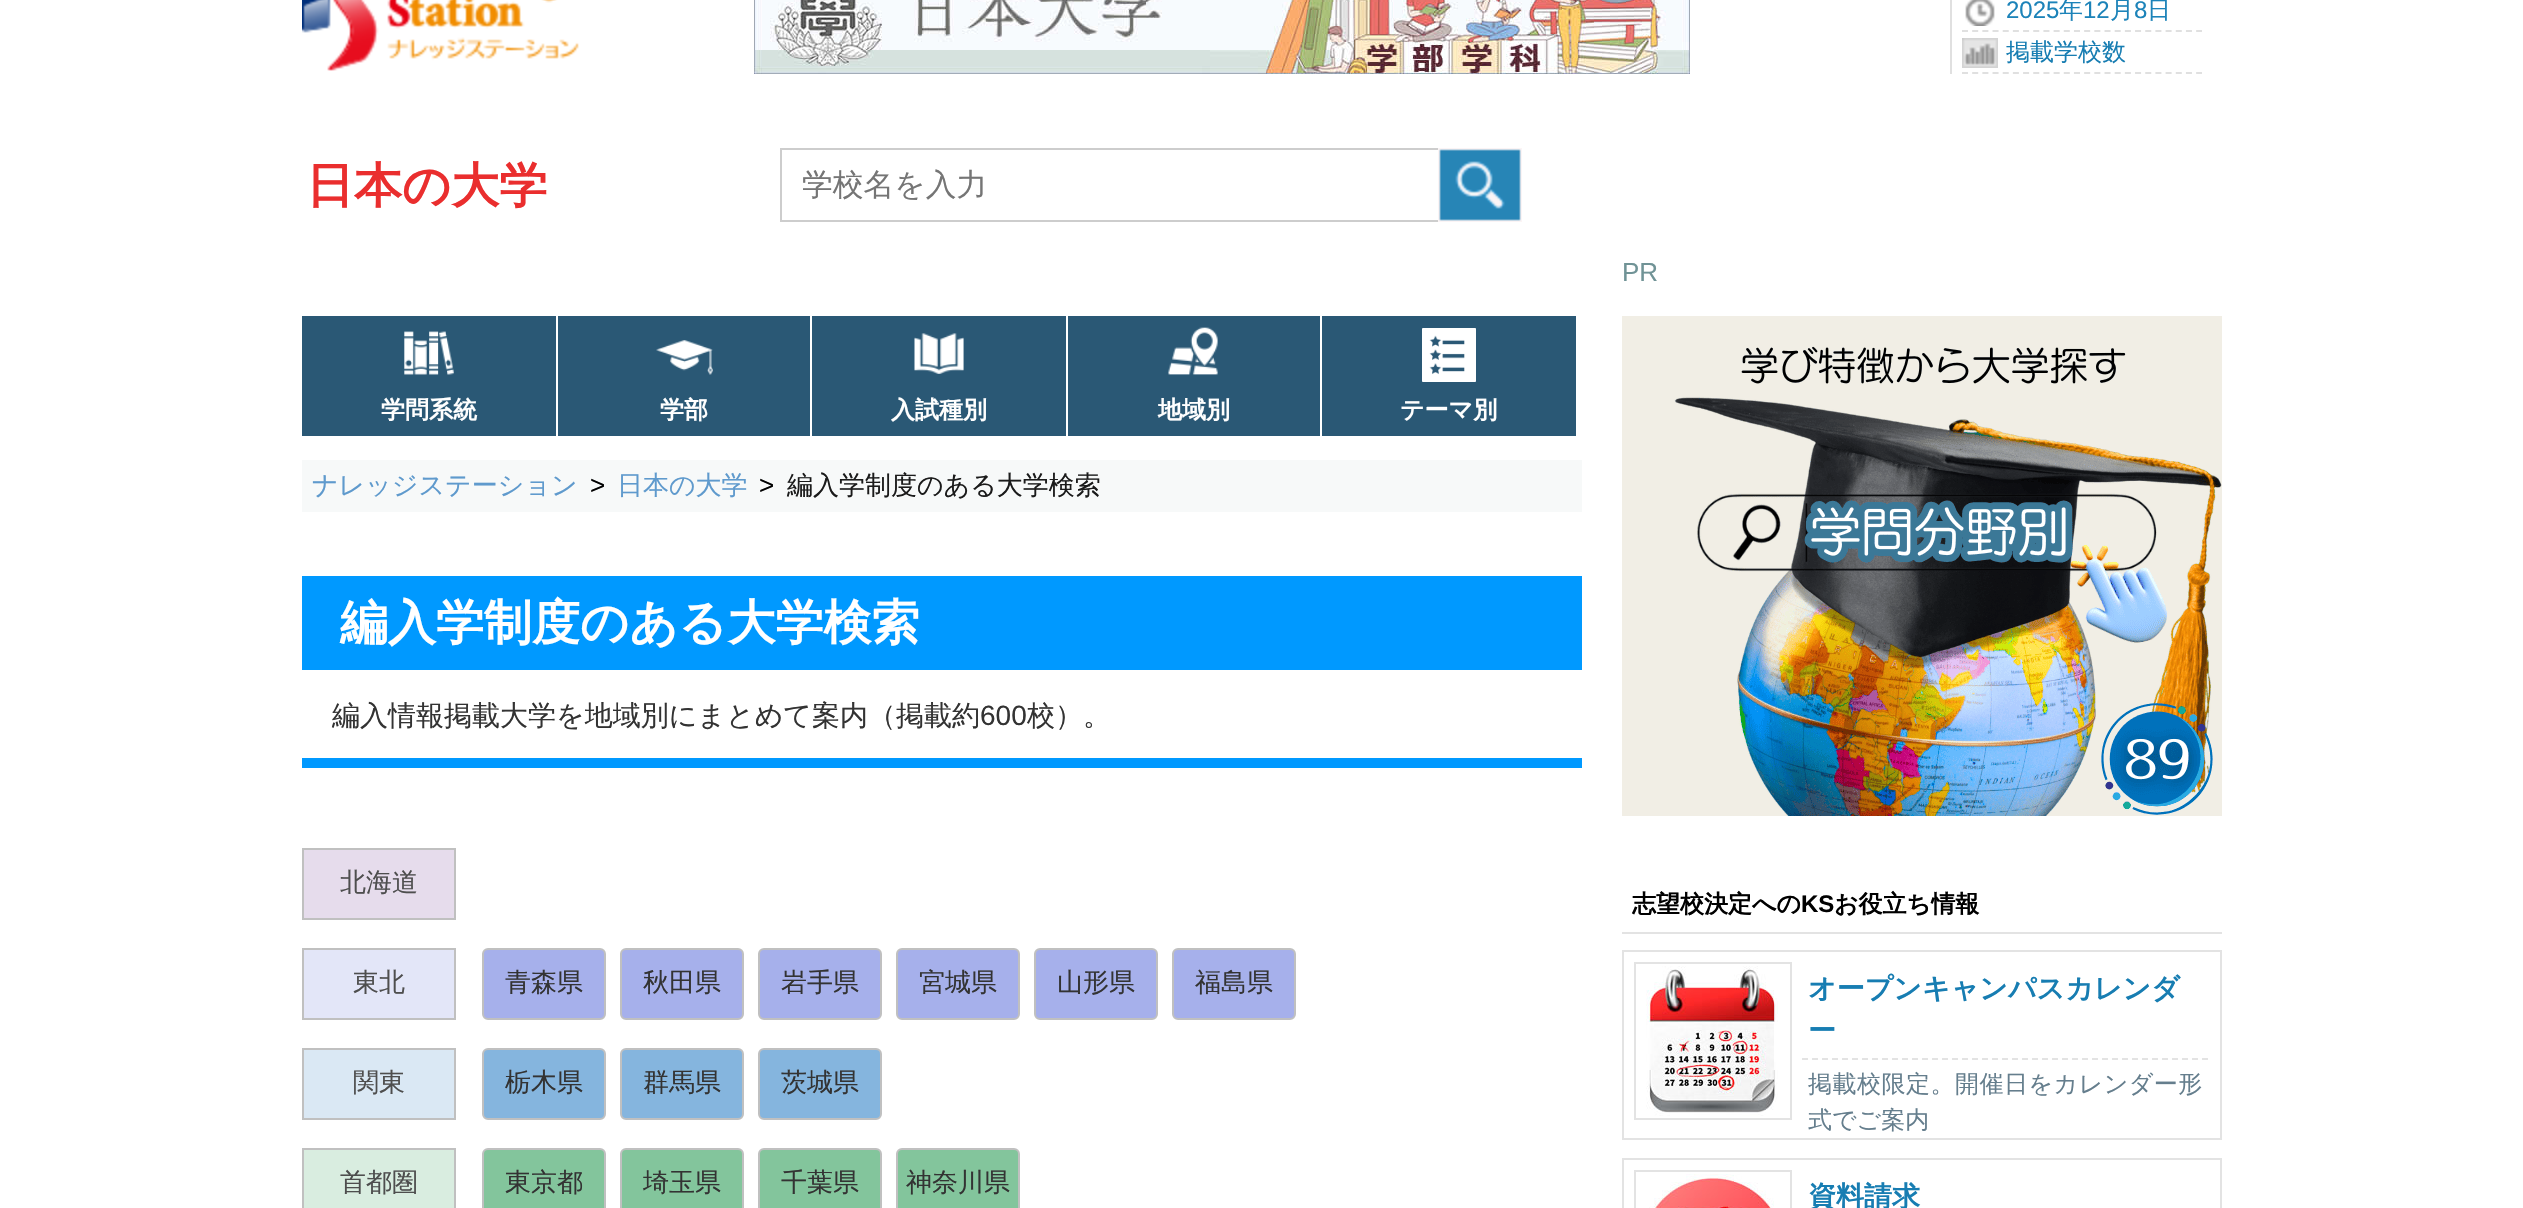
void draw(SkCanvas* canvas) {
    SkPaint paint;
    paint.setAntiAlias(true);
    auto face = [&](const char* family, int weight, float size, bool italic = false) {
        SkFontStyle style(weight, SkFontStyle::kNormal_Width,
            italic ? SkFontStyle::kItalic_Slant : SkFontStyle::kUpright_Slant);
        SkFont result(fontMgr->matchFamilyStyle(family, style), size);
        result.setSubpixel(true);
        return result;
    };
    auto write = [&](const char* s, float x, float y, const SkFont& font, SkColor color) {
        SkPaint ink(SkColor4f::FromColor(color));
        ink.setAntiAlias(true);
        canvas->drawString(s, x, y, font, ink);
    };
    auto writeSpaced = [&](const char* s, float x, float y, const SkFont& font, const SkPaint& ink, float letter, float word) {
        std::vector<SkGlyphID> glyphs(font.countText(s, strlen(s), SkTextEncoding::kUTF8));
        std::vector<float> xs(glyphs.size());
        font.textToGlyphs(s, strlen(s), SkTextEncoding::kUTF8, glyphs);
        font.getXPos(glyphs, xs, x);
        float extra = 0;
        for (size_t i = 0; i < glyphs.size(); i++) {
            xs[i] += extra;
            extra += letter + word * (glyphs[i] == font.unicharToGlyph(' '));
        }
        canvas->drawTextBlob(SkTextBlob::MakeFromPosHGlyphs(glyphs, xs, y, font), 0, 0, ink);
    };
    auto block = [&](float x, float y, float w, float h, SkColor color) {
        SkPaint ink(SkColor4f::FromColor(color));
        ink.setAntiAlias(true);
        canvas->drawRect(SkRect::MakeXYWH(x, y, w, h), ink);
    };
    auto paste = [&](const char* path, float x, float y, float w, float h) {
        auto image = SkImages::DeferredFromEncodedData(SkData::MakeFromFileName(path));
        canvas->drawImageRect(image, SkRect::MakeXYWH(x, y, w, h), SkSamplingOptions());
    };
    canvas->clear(SK_ColorWHITE);
    paste("pic1.png", 302, 0, 277, 71);
    paste("pic2.png", 754, 0, 936, 74);
    block(1950, 0, 2, 74, SkColorSetRGB(224, 224, 224));
    paste("pic3.png", 1965, 0, 30, 26);
    paint.setStyle(SkPaint::kStroke_Style);
    paint.setStrokeWidth(2);
    paint.setColor(SkColorSetRGB(224, 224, 224));
    paint.setPathEffect(SkDashPathEffect::Make({{6, 4.18f}}, 0));
    canvas->drawPath(SkPathBuilder().moveTo(1962, 31).lineTo(2202, 31).detach(), paint);
    paint.setPathEffect(nullptr);
    auto kFont1 = face("Liberation Sans", 400, 24);
    write("2025", 2006, 18, kFont1, SkColorSetRGB(28, 131, 185));
    auto kFont2 = face("WenQuanYi Zen Hei", 500, 24);
    write("年", 2059, 18, kFont2, SkColorSetRGB(28, 131, 185));
    write("12", 2083, 18, kFont1, SkColorSetRGB(28, 131, 185));
    write("月", 2110, 18, kFont2, SkColorSetRGB(28, 131, 185));
    write("8", 2134, 18, kFont1, SkColorSetRGB(28, 131, 185));
    write("日", 2147, 18, kFont2, SkColorSetRGB(28, 131, 185));
    paste("pic4.png", 1962, 38, 36, 30);
    paint.setPathEffect(SkDashPathEffect::Make({{6, 4.18f}}, 0));
    canvas->drawPath(SkPathBuilder().moveTo(1962, 73).lineTo(2202, 73).detach(), paint);
    paint.setPathEffect(nullptr);
    write("掲載学校数", 2006, 60, kFont2, SkColorSetRGB(23, 125, 178));
    auto kFont3 = face("WenQuanYi Zen Hei", 700, 48);
    write("日本の大学", 306, 202, kFont3, SkColorSetRGB(234, 46, 46));
    paint.setColor(SkColorSetRGB(205, 205, 205));
    canvas->drawRect(SkRect::MakeXYWH(781, 149, 660, 72), paint);
    auto kFont4 = face("WenQuanYi Zen Hei", 500, 30.75f);
    write("学校名を入力", 802, 195, kFont4, SkColorSetRGB(117, 117, 117));
    paste("pic5.png", 1438, 148, 84, 74);
    block(302, 316, 254, 120, SkColorSetRGB(42, 88, 117));
    paste("pic6.png", 404, 331, 50, 44);
    auto kFont5 = face("WenQuanYi Zen Hei", 700, 24);
    write("学問系統", 381, 418, kFont5, SK_ColorWHITE);
    block(558, 316, 252, 120, SkColorSetRGB(42, 88, 117));
    paste("pic7.png", 656, 340, 57, 35);
    write("学部", 660, 418, kFont5, SK_ColorWHITE);
    block(812, 316, 254, 120, SkColorSetRGB(42, 88, 117));
    paste("pic8.png", 914, 333, 50, 41);
    write("入試種別", 891, 418, kFont5, SK_ColorWHITE);
    block(1068, 316, 252, 120, SkColorSetRGB(42, 88, 117));
    paste("pic9.png", 1168, 327, 50, 48);
    write("地域別", 1158, 418, kFont5, SK_ColorWHITE);
    block(1322, 316, 254, 120, SkColorSetRGB(42, 88, 117));
    paste("pic10.png", 1422, 328, 54, 54);
    write("テーマ別", 1400, 418, kFont5, SK_ColorWHITE);
    block(302, 460, 1280, 52, SkColorSetRGB(247, 249, 249));
    auto kFont6 = face("WenQuanYi Zen Hei", 500, 26);
    write("ナレッジステーション", 312, 494, kFont6, SkColorSetRGB(95, 154, 205));
    auto kFont7 = face("Liberation Sans", 400, 26);
    write(">", 590, 494, kFont7, SK_ColorBLACK);
    write("日本の大学", 617, 494, kFont6, SkColorSetRGB(95, 154, 205));
    write(">", 759, 494, kFont7, SK_ColorBLACK);
    write("編入学制度のある大学検索", 787, 494, kFont6, SkColorSetRGB(27, 27, 27));
    write("PR", 1622, 281, kFont7, SkColorSetRGB(112, 147, 150));
    paste("pic11.png", 1622, 316, 600, 500);
    block(1622, 932, 600, 2, SkColorSetRGB(227, 227, 227));
    write("志望校決定への", 1632, 912, kFont5, SK_ColorBLACK);
    auto kFont8 = face("Liberation Sans", 700, 24);
    write("KS", 1801, 912, kFont8, SK_ColorBLACK);
    write("お役立ち情報", 1834, 912, kFont5, SK_ColorBLACK);
    paint.setColor(SkColorSetRGB(227, 227, 227));
    canvas->drawRect(SkRect::MakeXYWH(1623, 951, 598, 188), paint);
    canvas->drawRect(SkRect::MakeXYWH(1635, 963, 156, 156), paint);
    paste("pic12.png", 1646, 966, 132, 150);
    paint.setPathEffect(SkDashPathEffect::Make({{6, 4}}, 0));
    canvas->drawPath(SkPathBuilder().moveTo(1802, 1059).lineTo(2208, 1059).detach(), paint);
    paint.setPathEffect(nullptr);
    auto kFont9 = face("WenQuanYi Zen Hei", 700, 28);
    write("オープンキャンパスカレンダ", 1808, 998, kFont9, SkColorSetRGB(23, 125, 178));
    write("ー", 1808, 1040, kFont9, SkColorSetRGB(23, 125, 178));
    paint.setStyle(SkPaint::kFill_Style);
    paint.setColor(SkColorSetRGB(101, 126, 141));
    writeSpaced("掲載校限定。開催日をカレンダー形", 1808, 1092, kFont2, paint, 0.5f, 0);
    write("式でご案内", 1808, 1128, kFont2, SkColorSetRGB(101, 126, 141));
    paint.setStyle(SkPaint::kStroke_Style);
    paint.setColor(SkColorSetRGB(227, 227, 227));
    canvas->drawRect(SkRect::MakeXYWH(1623, 1159, 598, 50), paint);
    canvas->drawRect(SkRect::MakeXYWH(1635, 1171, 156, 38), paint);
    paste("pic13.png", 1649, 1174, 125, 34);
    write("資料請求", 1808, 1206, kFont9, SkColorSetRGB(23, 125, 178));
    block(302, 576, 1280, 94, SkColorSetRGB(0, 153, 255));
    write("編入学制度のある大学検索", 340, 639, kFont3, SK_ColorWHITE);
    block(302, 758, 1280, 10, SkColorSetRGB(0, 153, 255));
    auto kFont10 = face("WenQuanYi Zen Hei", 500, 28);
    write("編入情報掲載大学を地域別にまとめて案内（掲載約", 332, 725, kFont10, SkColorSetRGB(51, 51, 51));
    auto kFont11 = face("Liberation Sans", 400, 28);
    write("600", 980, 725, kFont11, SkColorSetRGB(51, 51, 51));
    write("校）。", 1027, 725, kFont10, SkColorSetRGB(51, 51, 51));
    paint.setStyle(SkPaint::kFill_Style);
    paint.setColor(SkColorSetRGB(230, 220, 236));
    canvas->drawRect(SkRect::MakeXYWH(303, 849, 152, 70), paint);
    paint.setStyle(SkPaint::kStroke_Style);
    paint.setColor(SkColorSetRGB(192, 192, 192));
    canvas->drawRect(SkRect::MakeXYWH(303, 849, 152, 70), paint);
    write("北海道", 340, 891, kFont6, SkColorSetRGB(78, 78, 78));
    paint.setStyle(SkPaint::kFill_Style);
    paint.setColor(SkColorSetRGB(227, 230, 248));
    canvas->drawRect(SkRect::MakeXYWH(303, 949, 152, 70), paint);
    paint.setStyle(SkPaint::kStroke_Style);
    paint.setColor(SkColorSetRGB(192, 192, 192));
    canvas->drawRect(SkRect::MakeXYWH(303, 949, 152, 70), paint);
    write("東北", 353, 991, kFont6, SkColorSetRGB(78, 78, 78));
    paint.setStyle(SkPaint::kFill_Style);
    paint.setColor(SkColorSetRGB(166, 176, 235));
    canvas->drawRoundRect(SkRect::MakeXYWH(483, 949, 122, 70), 5, 5, paint);
    paint.setStyle(SkPaint::kStroke_Style);
    paint.setColor(SkColorSetRGB(192, 192, 192));
    canvas->drawRoundRect(SkRect::MakeXYWH(483, 949, 122, 70), 5, 5, paint);
    write("青森県", 505, 991, kFont6, SkColorSetRGB(51, 51, 51));
    paint.setStyle(SkPaint::kFill_Style);
    paint.setColor(SkColorSetRGB(166, 176, 235));
    canvas->drawRoundRect(SkRect::MakeXYWH(621, 949, 122, 70), 5, 5, paint);
    paint.setStyle(SkPaint::kStroke_Style);
    paint.setColor(SkColorSetRGB(192, 192, 192));
    canvas->drawRoundRect(SkRect::MakeXYWH(621, 949, 122, 70), 5, 5, paint);
    write("秋田県", 643, 991, kFont6, SkColorSetRGB(51, 51, 51));
    paint.setStyle(SkPaint::kFill_Style);
    paint.setColor(SkColorSetRGB(166, 176, 235));
    canvas->drawRoundRect(SkRect::MakeXYWH(759, 949, 122, 70), 5, 5, paint);
    paint.setStyle(SkPaint::kStroke_Style);
    paint.setColor(SkColorSetRGB(192, 192, 192));
    canvas->drawRoundRect(SkRect::MakeXYWH(759, 949, 122, 70), 5, 5, paint);
    write("岩手県", 781, 991, kFont6, SkColorSetRGB(51, 51, 51));
    paint.setStyle(SkPaint::kFill_Style);
    paint.setColor(SkColorSetRGB(166, 176, 235));
    canvas->drawRoundRect(SkRect::MakeXYWH(897, 949, 122, 70), 5, 5, paint);
    paint.setStyle(SkPaint::kStroke_Style);
    paint.setColor(SkColorSetRGB(192, 192, 192));
    canvas->drawRoundRect(SkRect::MakeXYWH(897, 949, 122, 70), 5, 5, paint);
    write("宮城県", 919, 991, kFont6, SkColorSetRGB(51, 51, 51));
    paint.setStyle(SkPaint::kFill_Style);
    paint.setColor(SkColorSetRGB(166, 176, 235));
    canvas->drawRoundRect(SkRect::MakeXYWH(1035, 949, 122, 70), 5, 5, paint);
    paint.setStyle(SkPaint::kStroke_Style);
    paint.setColor(SkColorSetRGB(192, 192, 192));
    canvas->drawRoundRect(SkRect::MakeXYWH(1035, 949, 122, 70), 5, 5, paint);
    write("山形県", 1057, 991, kFont6, SkColorSetRGB(51, 51, 51));
    paint.setStyle(SkPaint::kFill_Style);
    paint.setColor(SkColorSetRGB(166, 176, 235));
    canvas->drawRoundRect(SkRect::MakeXYWH(1173, 949, 122, 70), 5, 5, paint);
    paint.setStyle(SkPaint::kStroke_Style);
    paint.setColor(SkColorSetRGB(192, 192, 192));
    canvas->drawRoundRect(SkRect::MakeXYWH(1173, 949, 122, 70), 5, 5, paint);
    write("福島県", 1195, 991, kFont6, SkColorSetRGB(51, 51, 51));
    paint.setStyle(SkPaint::kFill_Style);
    paint.setColor(SkColorSetRGB(218, 232, 244));
    canvas->drawRect(SkRect::MakeXYWH(303, 1049, 152, 70), paint);
    paint.setStyle(SkPaint::kStroke_Style);
    paint.setColor(SkColorSetRGB(192, 192, 192));
    canvas->drawRect(SkRect::MakeXYWH(303, 1049, 152, 70), paint);
    write("関東", 353, 1091, kFont6, SkColorSetRGB(78, 78, 78));
    paint.setStyle(SkPaint::kFill_Style);
    paint.setColor(SkColorSetRGB(133, 181, 222));
    canvas->drawRoundRect(SkRect::MakeXYWH(483, 1049, 122, 70), 5, 5, paint);
    paint.setStyle(SkPaint::kStroke_Style);
    paint.setColor(SkColorSetRGB(192, 192, 192));
    canvas->drawRoundRect(SkRect::MakeXYWH(483, 1049, 122, 70), 5, 5, paint);
    write("栃木県", 505, 1091, kFont6, SkColorSetRGB(51, 51, 51));
    paint.setStyle(SkPaint::kFill_Style);
    paint.setColor(SkColorSetRGB(133, 181, 222));
    canvas->drawRoundRect(SkRect::MakeXYWH(621, 1049, 122, 70), 5, 5, paint);
    paint.setStyle(SkPaint::kStroke_Style);
    paint.setColor(SkColorSetRGB(192, 192, 192));
    canvas->drawRoundRect(SkRect::MakeXYWH(621, 1049, 122, 70), 5, 5, paint);
    write("群馬県", 643, 1091, kFont6, SkColorSetRGB(51, 51, 51));
    paint.setStyle(SkPaint::kFill_Style);
    paint.setColor(SkColorSetRGB(133, 181, 222));
    canvas->drawRoundRect(SkRect::MakeXYWH(759, 1049, 122, 70), 5, 5, paint);
    paint.setStyle(SkPaint::kStroke_Style);
    paint.setColor(SkColorSetRGB(192, 192, 192));
    canvas->drawRoundRect(SkRect::MakeXYWH(759, 1049, 122, 70), 5, 5, paint);
    write("茨城県", 781, 1091, kFont6, SkColorSetRGB(51, 51, 51));
    paint.setStyle(SkPaint::kFill_Style);
    paint.setColor(SkColorSetRGB(217, 237, 224));
    canvas->drawRect(SkRect::MakeXYWH(303, 1149, 152, 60), paint);
    paint.setStyle(SkPaint::kStroke_Style);
    paint.setColor(SkColorSetRGB(192, 192, 192));
    canvas->drawRect(SkRect::MakeXYWH(303, 1149, 152, 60), paint);
    write("首都圏", 340, 1191, kFont6, SkColorSetRGB(78, 78, 78));
    paint.setStyle(SkPaint::kFill_Style);
    paint.setColor(SkColorSetRGB(131, 197, 156));
    canvas->drawRoundRect(SkRect::MakeXYWH(483, 1149, 122, 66), 5, 5, paint);
    paint.setStyle(SkPaint::kStroke_Style);
    paint.setColor(SkColorSetRGB(192, 192, 192));
    canvas->drawRoundRect(SkRect::MakeXYWH(483, 1149, 122, 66), 5, 5, paint);
    write("東京都", 505, 1191, kFont6, SkColorSetRGB(51, 51, 51));
    paint.setStyle(SkPaint::kFill_Style);
    paint.setColor(SkColorSetRGB(131, 197, 156));
    canvas->drawRoundRect(SkRect::MakeXYWH(621, 1149, 122, 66), 5, 5, paint);
    paint.setStyle(SkPaint::kStroke_Style);
    paint.setColor(SkColorSetRGB(192, 192, 192));
    canvas->drawRoundRect(SkRect::MakeXYWH(621, 1149, 122, 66), 5, 5, paint);
    write("埼玉県", 643, 1191, kFont6, SkColorSetRGB(51, 51, 51));
    paint.setStyle(SkPaint::kFill_Style);
    paint.setColor(SkColorSetRGB(131, 197, 156));
    canvas->drawRoundRect(SkRect::MakeXYWH(759, 1149, 122, 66), 5, 5, paint);
    paint.setStyle(SkPaint::kStroke_Style);
    paint.setColor(SkColorSetRGB(192, 192, 192));
    canvas->drawRoundRect(SkRect::MakeXYWH(759, 1149, 122, 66), 5, 5, paint);
    write("千葉県", 781, 1191, kFont6, SkColorSetRGB(51, 51, 51));
    paint.setStyle(SkPaint::kFill_Style);
    paint.setColor(SkColorSetRGB(131, 197, 156));
    canvas->drawRoundRect(SkRect::MakeXYWH(897, 1149, 122, 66), 5, 5, paint);
    paint.setStyle(SkPaint::kStroke_Style);
    paint.setColor(SkColorSetRGB(192, 192, 192));
    canvas->drawRoundRect(SkRect::MakeXYWH(897, 1149, 122, 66), 5, 5, paint);
    write("神奈川県", 906, 1191, kFont6, SkColorSetRGB(51, 51, 51));
}
